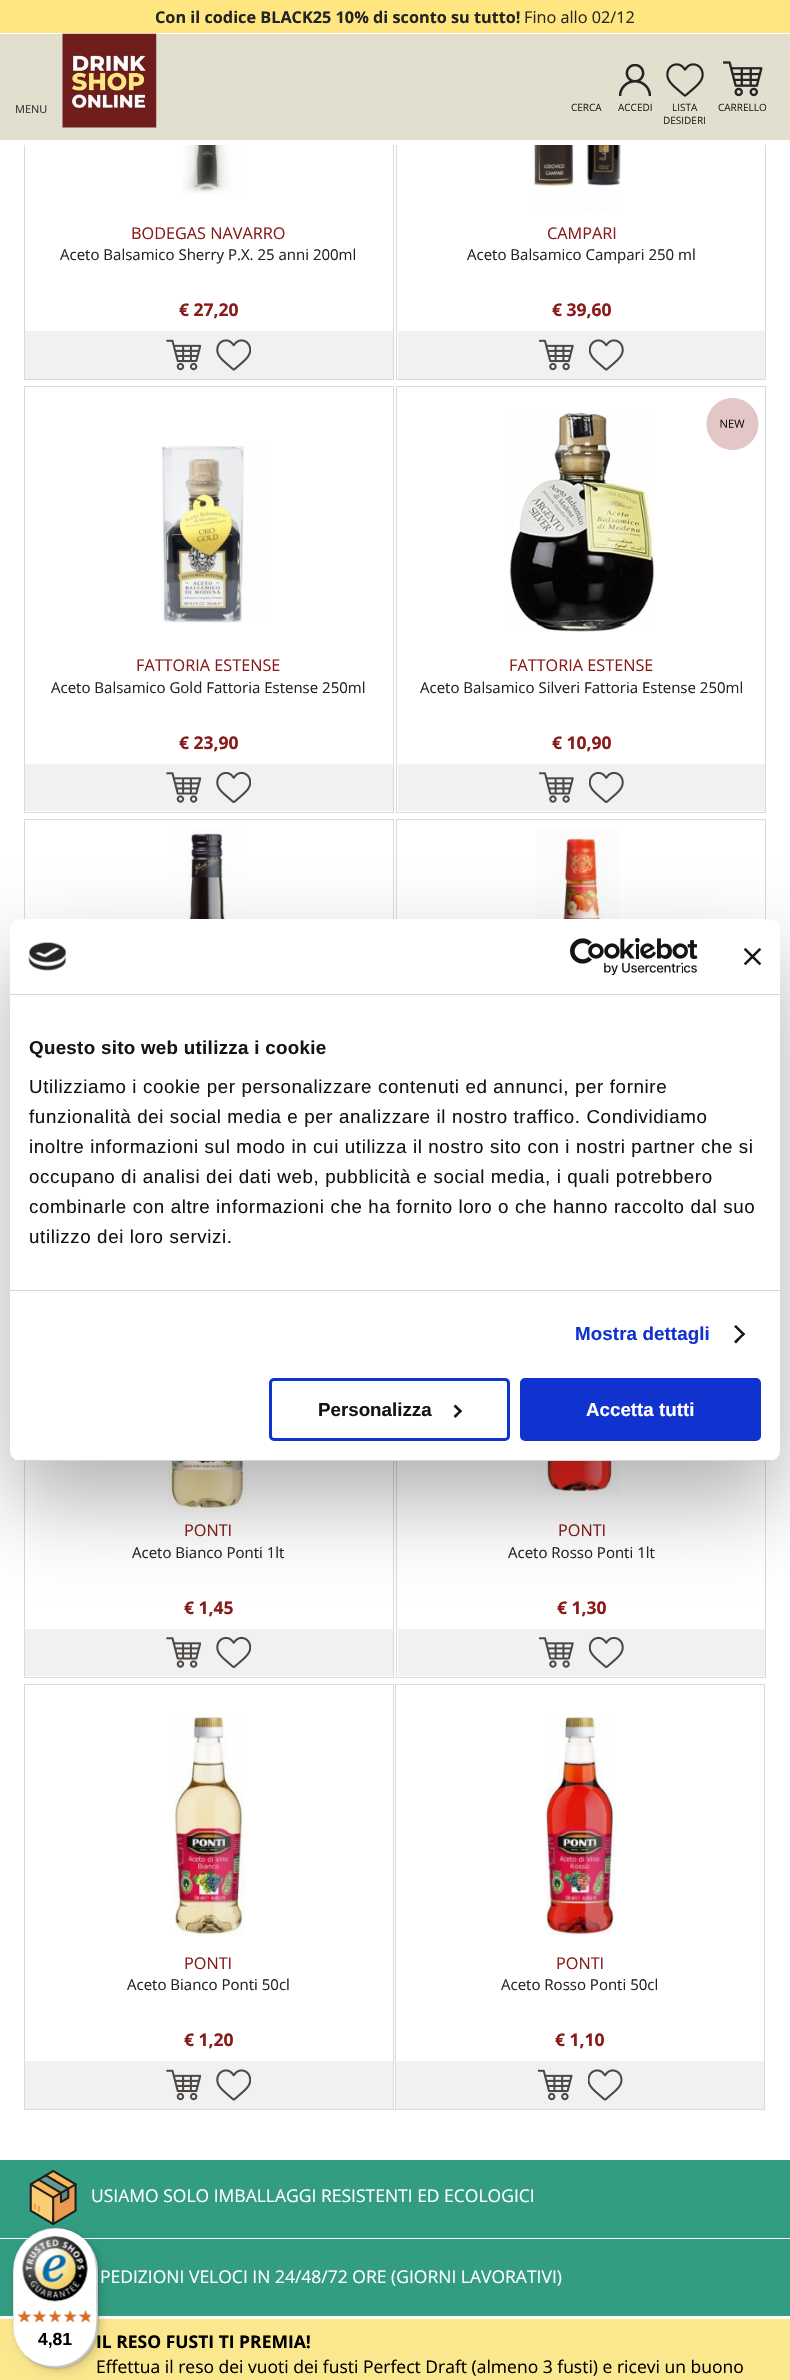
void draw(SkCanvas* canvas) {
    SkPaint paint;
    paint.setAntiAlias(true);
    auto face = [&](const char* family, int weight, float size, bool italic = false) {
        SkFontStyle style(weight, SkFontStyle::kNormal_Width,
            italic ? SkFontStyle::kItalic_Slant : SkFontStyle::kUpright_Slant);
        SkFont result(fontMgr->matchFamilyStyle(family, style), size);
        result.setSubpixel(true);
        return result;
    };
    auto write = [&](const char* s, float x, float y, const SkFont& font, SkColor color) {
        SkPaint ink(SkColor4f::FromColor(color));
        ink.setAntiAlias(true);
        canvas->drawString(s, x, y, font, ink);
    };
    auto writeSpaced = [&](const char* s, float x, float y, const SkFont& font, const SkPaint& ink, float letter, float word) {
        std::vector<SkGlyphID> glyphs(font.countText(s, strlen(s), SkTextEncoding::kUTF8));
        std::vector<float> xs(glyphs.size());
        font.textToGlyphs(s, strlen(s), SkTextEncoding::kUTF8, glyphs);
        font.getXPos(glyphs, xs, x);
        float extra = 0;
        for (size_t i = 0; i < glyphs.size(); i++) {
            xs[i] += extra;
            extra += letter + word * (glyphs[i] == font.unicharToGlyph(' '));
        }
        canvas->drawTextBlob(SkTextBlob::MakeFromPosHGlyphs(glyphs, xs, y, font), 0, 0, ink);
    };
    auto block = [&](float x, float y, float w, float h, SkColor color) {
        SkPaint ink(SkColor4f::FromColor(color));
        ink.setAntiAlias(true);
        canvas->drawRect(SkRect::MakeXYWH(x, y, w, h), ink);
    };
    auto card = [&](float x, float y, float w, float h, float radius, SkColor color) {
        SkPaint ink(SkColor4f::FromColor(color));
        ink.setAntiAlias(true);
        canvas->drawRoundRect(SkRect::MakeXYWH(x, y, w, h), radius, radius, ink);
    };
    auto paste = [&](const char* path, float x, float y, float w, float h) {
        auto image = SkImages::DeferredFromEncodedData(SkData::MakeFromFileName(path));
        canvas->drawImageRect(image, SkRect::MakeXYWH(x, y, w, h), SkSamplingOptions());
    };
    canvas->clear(SK_ColorWHITE);
    paint.setStyle(SkPaint::kStroke_Style);
    paint.setStrokeWidth(1);
    paint.setColor(SkColorSetRGB(218, 218, 218));
    canvas->drawRect(SkRect::MakeXYWH(24.5f, -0.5f, 369, 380), paint);
    canvas->drawRect(SkRect::MakeXYWH(396.5f, -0.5f, 369, 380), paint);
    block(0, 34, 790, 106, SkColorSetRGB(227, 223, 207));
    block(24, 140, 742, 5, SK_ColorWHITE);
    block(0, 0, 790, 33, SkColorSetRGB(255, 230, 128));
    block(24, 33, 742, 1, SK_ColorWHITE);
    auto kFont1 = face("Open Sans", 700, 16.25f);
    write("Con il codice BLACK25 10% di sconto su tutto!", 155, 23, kFont1, SkColorSetRGB(36, 36, 36));
    auto kFont2 = face("Open Sans", 400, 16.25f);
    write("Fino allo 02/12", 524, 23, kFont2, SkColorSetRGB(36, 36, 36));
    auto kFont3 = face("Open Sans", 400, 11);
    write("MENU", 15, 113, kFont3, SkColorSetRGB(48, 48, 48));
    paste("pic1.png", 62, 33, 95, 95);
    auto kFont4 = face("Open Sans", 400, 10);
    write("CERCA", 571, 111, kFont4, SkColorSetRGB(36, 36, 36));
    paste("pic2.png", 619, 64, 32, 32);
    write("ACCEDI", 618, 111, kFont4, SkColorSetRGB(36, 36, 36));
    paste("pic3.png", 666, 63, 38, 34);
    write("LISTA", 672, 111, kFont4, SkColorSetRGB(36, 36, 36));
    write("DESIDERI", 663, 124, kFont4, SkColorSetRGB(36, 36, 36));
    paste("pic4.png", 723, 61, 40, 36);
    write("CARRELLO", 718, 111, kFont4, SkColorSetRGB(36, 36, 36));
    paste("pic5.png", 183, 145, 63, 49);
    write("BODEGAS NAVARRO", 131, 239, kFont2, SkColorSetRGB(137, 28, 26));
    auto kFont5 = face("Open Sans", 400, 15);
    write("Aceto Balsamico Sherry P.X. 25 anni 200ml", 60, 260, kFont5, SkColorSetRGB(36, 36, 36));
    auto kFont6 = face("Open Sans", 700, 17.5f);
    write("€ 27,20", 179, 316, kFont6, SkColorSetRGB(137, 28, 26));
    block(25, 331, 368, 48, SkColorSetRGB(241, 241, 241));
    paste("pic6.png", 166, 339, 35, 32);
    paste("pic7.png", 216, 339, 35, 32);
    paste("pic8.png", 533, 145, 88, 66);
    write("CAMPARI", 547, 239, kFont2, SkColorSetRGB(137, 28, 26));
    write("Aceto Balsamico Campari 250 ml", 467, 260, kFont5, SkColorSetRGB(36, 36, 36));
    write("€ 39,60", 552, 316, kFont6, SkColorSetRGB(137, 28, 26));
    block(398, 331, 367, 48, SkColorSetRGB(241, 241, 241));
    paste("pic9.png", 539, 339, 35, 32);
    paste("pic10.png", 589, 339, 35, 32);
    canvas->drawRect(SkRect::MakeXYWH(24.5f, 386.5f, 369, 426), paint);
    paste("pic11.png", 161, 446, 106, 177);
    write("FATTORIA ESTENSE", 136, 671, kFont2, SkColorSetRGB(137, 28, 26));
    write("Aceto Balsamico Gold Fattoria Estense 250ml", 51, 693, kFont5, SkColorSetRGB(36, 36, 36));
    write("€ 23,90", 179, 749, kFont6, SkColorSetRGB(137, 28, 26));
    block(25, 764, 368, 47, SkColorSetRGB(241, 241, 241));
    paste("pic12.png", 166, 772, 35, 31);
    paste("pic13.png", 216, 771, 35, 32);
    canvas->drawRect(SkRect::MakeXYWH(396.5f, 386.5f, 369, 426), paint);
    paste("pic14.png", 509, 411, 146, 221);
    paste("pic15.png", 706, 398, 53, 52);
    write("FATTORIA ESTENSE", 509, 671, kFont2, SkColorSetRGB(137, 28, 26));
    write("Aceto Balsamico Silveri Fattoria Estense 250ml", 420, 693, kFont5, SkColorSetRGB(36, 36, 36));
    write("€ 10,90", 552, 749, kFont6, SkColorSetRGB(137, 28, 26));
    block(398, 764, 367, 47, SkColorSetRGB(241, 241, 241));
    paste("pic16.png", 539, 772, 35, 31);
    paste("pic17.png", 589, 771, 35, 32);
    canvas->drawRect(SkRect::MakeXYWH(24.5f, 819.5f, 369, 425), paint);
    paste("pic18.png", 171, 829, 74, 90);
    canvas->drawRect(SkRect::MakeXYWH(396.5f, 819.5f, 369, 425), paint);
    paste("pic19.png", 536, 829, 83, 90);
    canvas->drawRect(SkRect::MakeXYWH(24.5f, 1251.5f, 369, 426), paint);
    paste("pic20.png", 168, 1461, 79, 51);
    write("PONTI", 184, 1536, kFont2, SkColorSetRGB(137, 28, 26));
    write("Aceto Bianco Ponti 1lt", 132, 1558, kFont5, SkColorSetRGB(36, 36, 36));
    write("€ 1,45", 184, 1614, kFont6, SkColorSetRGB(137, 28, 26));
    block(25, 1629, 368, 47, SkColorSetRGB(241, 241, 241));
    paste("pic12.png", 166, 1637, 35, 31);
    paste("pic13.png", 216, 1636, 35, 32);
    canvas->drawRect(SkRect::MakeXYWH(396.5f, 1251.5f, 369, 426), paint);
    paste("pic21.png", 537, 1461, 83, 34);
    write("PONTI", 558, 1536, kFont2, SkColorSetRGB(137, 28, 26));
    write("Aceto Rosso Ponti 1lt", 508, 1558, kFont5, SkColorSetRGB(36, 36, 36));
    write("€ 1,30", 557, 1614, kFont6, SkColorSetRGB(137, 28, 26));
    block(398, 1629, 367, 47, SkColorSetRGB(241, 241, 241));
    paste("pic16.png", 539, 1637, 35, 31);
    paste("pic17.png", 589, 1636, 35, 32);
    canvas->drawRect(SkRect::MakeXYWH(24.5f, 1684.5f, 369, 425), paint);
    paste("pic22.png", 174, 1716, 71, 219);
    write("PONTI", 184, 1969, kFont2, SkColorSetRGB(137, 28, 26));
    write("Aceto Bianco Ponti 50cl", 127, 1990, kFont5, SkColorSetRGB(36, 36, 36));
    write("€ 1,20", 184, 2046, kFont6, SkColorSetRGB(137, 28, 26));
    block(25, 2061, 368, 48, SkColorSetRGB(241, 241, 241));
    paste("pic6.png", 166, 2069, 35, 32);
    paste("pic7.png", 216, 2069, 35, 32);
    canvas->drawRect(SkRect::MakeXYWH(395.5f, 1684.5f, 369, 425), paint);
    paste("pic23.png", 545, 1716, 71, 220);
    write("PONTI", 556, 1969, kFont2, SkColorSetRGB(137, 28, 26));
    write("Aceto Rosso Ponti 50cl", 501, 1990, kFont5, SkColorSetRGB(36, 36, 36));
    write("€ 1,10", 555, 2046, kFont6, SkColorSetRGB(137, 28, 26));
    block(396, 2061, 368, 48, SkColorSetRGB(241, 241, 241));
    paste("pic24.png", 538, 2069, 35, 32);
    paste("pic25.png", 588, 2069, 35, 32);
    block(0, 2160, 790, 156, SkColorSetRGB(50, 157, 131));
    block(0, 2238, 790, 1, SK_ColorWHITE);
    paste("pic26.png", 29, 2170, 48, 55);
    auto kFont7 = face("Open Sans", 400, 17.5f);
    write("USIAMO SOLO IMBALLAGGI RESISTENTI ED ECOLOGICI", 91, 2202, kFont7, SK_ColorWHITE);
    write("PEDIZIONI VELOCI IN 24/48/72 ORE (GIORNI LAVORATIVI)", 100, 2283, kFont7, SK_ColorWHITE);
    block(0, 2319, 790, 61, SkColorSetRGB(250, 231, 142));
    write("IL RESO FUSTI TI PREMIA!", 96, 2348, kFont6, SK_ColorBLACK);
    write("Effettua il reso dei vuoti dei fusti Perfect Draft (almeno 3 fusti) e ricevi un buono", 96, 2373, kFont7, SK_ColorBLACK);
    paint.setStyle(SkPaint::kFill_Style);
    paint.setColor(SkColorSetARGB(77, 0, 0, 0));
    paint.setMaskFilter(SkMaskFilter::MakeBlur(kNormal_SkBlurStyle, 42.5f));
    canvas->drawRoundRect(SkRect::MakeXYWH(10, 959, 770, 542), 10, 10, paint);
    paint.setMaskFilter(nullptr);
    card(10, 919, 770, 542, 10, SK_ColorWHITE);
    block(10, 994, 770, 1, SkColorSetRGB(214, 214, 214));
    paste("pic27.png", 28, 942, 39, 29);
    paste("pic28.png", 570, 938, 128, 37);
    paste("pic29.png", 744, 948, 17, 17);
    block(10, 1290, 770, 1, SkColorSetRGB(214, 214, 214));
    auto kFont8 = face("Liberation Sans", 700, 18.75f);
    paint.setColor(SkColorSetRGB(20, 20, 20));
    writeSpaced("Questo sito web utilizza i cookie", 29, 1054, kFont8, paint, 0.3f, 0);
    auto kFont9 = face("Liberation Sans", 400, 18.75f);
    writeSpaced("Utilizziamo i cookie per personalizzare contenuti ed annunci, per fornire", 29, 1093, kFont9, paint, 0.62f, 0);
    writeSpaced("funzionalità dei social media e per analizzare il nostro traffico. Condividiamo", 29, 1123, kFont9, paint, 0.62f, 0);
    writeSpaced("inoltre informazioni sul modo in cui utilizza il nostro sito con i nostri partner che si", 29, 1153, kFont9, paint, 0.62f, 0);
    writeSpaced("occupano di analisi dei dati web, pubblicità e social media, i quali potrebbero", 29, 1183, kFont9, paint, 0.62f, 0);
    writeSpaced("combinarle con altre informazioni che ha fornito loro o che hanno raccolto dal suo", 29, 1213, kFont9, paint, 0.62f, 0);
    writeSpaced("utilizzo dei loro servizi.", 29, 1243, kFont9, paint, 0.62f, 0);
    paint.setColor(SkColorSetRGB(16, 50, 207));
    writeSpaced("Mostra dettagli", 575, 1340, kFont8, paint, 0.1f, 0);
    paint.setColor(SkColorSetRGB(20, 20, 20));
    canvas->drawPath(SkPathBuilder().moveTo(736, 1325).lineTo(745, 1334).lineTo(743.5f, 1336).lineTo(734, 1326.5f).close().detach(), paint);
    canvas->drawPath(SkPathBuilder().moveTo(743.5f, 1332.5f).lineTo(745, 1334).lineTo(736, 1343.5f).lineTo(734, 1341.5f).close().detach(), paint);
    canvas->save();
    canvas->clipPath(SkPathBuilder().moveTo(20, 919).lineTo(770, 919).cubicTo(775.5f, 919, 780, 923.5f, 780, 929).lineTo(780, 1451).cubicTo(780, 1456.5f, 775.5f, 1461, 770, 1461).lineTo(20, 1461).cubicTo(14.5f, 1461, 10, 1456.5f, 10, 1451).lineTo(10, 929).cubicTo(10, 923.5f, 14.5f, 919, 20, 919).close().detach(), true);
    block(10, 1460, 770, 1, SkColorSetRGB(214, 214, 214));
    canvas->restore();
    paint.setStyle(SkPaint::kStroke_Style);
    paint.setStrokeWidth(3);
    paint.setColor(SkColorSetRGB(16, 50, 207));
    canvas->drawRoundRect(SkRect::MakeXYWH(270.5f, 1379.5f, 238, 60), 3.5f, 3.5f, paint);
    write("Personalizza", 318, 1416, kFont8, SkColorSetRGB(20, 20, 20));
    paint.setStyle(SkPaint::kFill_Style);
    paint.setColor(SkColorSetRGB(20, 20, 20));
    canvas->drawPath(SkPathBuilder().moveTo(455.5f, 1404.5f).lineTo(462, 1411).lineTo(460.5f, 1413).lineTo(453.5f, 1406.5f).close().detach(), paint);
    canvas->drawPath(SkPathBuilder().moveTo(460.5f, 1409.5f).lineTo(462, 1411).lineTo(455.5f, 1418).lineTo(453.5f, 1416).close().detach(), paint);
    paint.setColor(SkColorSetRGB(16, 50, 207));
    canvas->drawRoundRect(SkRect::MakeXYWH(521.5f, 1379.5f, 238, 60), 3.5f, 3.5f, paint);
    paint.setStyle(SkPaint::kStroke_Style);
    canvas->drawRoundRect(SkRect::MakeXYWH(521.5f, 1379.5f, 238, 60), 3.5f, 3.5f, paint);
    write("Accetta tutti", 586, 1416, kFont8, SK_ColorWHITE);
    paint.setStyle(SkPaint::kFill_Style);
    paint.setColor(SkColorSetARGB(38, 0, 0, 0));
    paint.setMaskFilter(SkMaskFilter::MakeBlur(kNormal_SkBlurStyle, 5));
    canvas->drawRoundRect(SkRect::MakeXYWH(16, 2231, 85, 140), 42.5f, 42.5f, paint);
    paint.setMaskFilter(nullptr);
    paint.setMaskFilter(SkMaskFilter::MakeBlur(kNormal_SkBlurStyle, 1));
    canvas->drawRoundRect(SkRect::MakeXYWH(14, 2229, 85, 140), 42.5f, 42.5f, paint);
    paint.setMaskFilter(nullptr);
    card(13, 2228, 85, 140, 42.5f, SK_ColorWHITE);
    paint.setColor(SkColorSetARGB(26, 0, 0, 0));
    canvas->drawPath(SkPathBuilder().moveTo(56, 2229).cubicTo(68, 2229, 78, 2233, 86, 2241).cubicTo(65, 2219, 28, 2226, 16, 2254).cubicTo(11, 2266, 13, 2284, 13, 2298).cubicTo(13, 2319, 10, 2340, 26, 2356).cubicTo(18, 2348, 14, 2338, 14, 2326).lineTo(14, 2271).cubicTo(14, 2248, 33, 2229, 56, 2229).close().detach(), paint);
    paint.setColor(SkColorSetARGB(51, 0, 0, 0));
    canvas->drawPath(SkPathBuilder().moveTo(25, 2355).cubicTo(45, 2377, 83, 2370, 95, 2342).cubicTo(100, 2330, 98, 2312, 98, 2298).cubicTo(98, 2277, 102, 2255, 85, 2240).cubicTo(99, 2255, 96, 2277, 96, 2296).cubicTo(96, 2310, 98, 2328, 93, 2340).cubicTo(81, 2368, 46, 2374, 25, 2355).close().detach(), paint);
    paint.setColor(SkColorSetARGB(51, 50, 50, 50));
    canvas->drawPath(SkPathBuilder().moveTo(25, 2356).cubicTo(46, 2376, 83, 2370, 95, 2342).cubicTo(100, 2330, 98, 2312, 98, 2298).cubicTo(98, 2277, 101, 2256, 86, 2240).cubicTo(93, 2248, 97, 2258, 97, 2269).lineTo(97, 2324).cubicTo(97, 2348, 78, 2367, 54, 2367).cubicTo(43, 2367, 33, 2363, 25, 2356).close().detach(), paint);
    paint.setColor(SkColorSetARGB(77, 255, 255, 255));
    canvas->drawPath(SkPathBuilder().moveTo(25, 2356).cubicTo(46, 2376, 83, 2370, 95, 2342).cubicTo(100, 2330, 98, 2312, 98, 2298).cubicTo(98, 2277, 101, 2256, 86, 2240).cubicTo(93, 2248, 97, 2258, 97, 2269).lineTo(97, 2324).cubicTo(97, 2348, 78, 2367, 54, 2367).cubicTo(43, 2367, 33, 2363, 25, 2356).close().detach(), paint);
    paste("pic30.png", 22, 2236, 66, 66);
    paste("pic31.png", 17, 2310, 14, 13);
    paste("pic32.png", 34, 2310, 12, 12);
    paste("pic33.png", 49, 2310, 12, 13);
    paste("pic34.png", 64, 2310, 14, 12);
    paste("pic35.png", 79, 2310, 14, 13);
    paste("pic36.png", 17, 2310, 15, 12);
    paste("pic37.png", 32, 2310, 15, 12);
    paste("pic38.png", 48, 2310, 14, 12);
    paste("pic39.png", 63, 2310, 14, 12);
    paste("pic40.png", 78, 2310, 12, 12);
    auto kFont10 = face("Liberation Sans", 700, 17.5f);
    write("4,81", 38, 2345, kFont10, SK_ColorBLACK);
}
